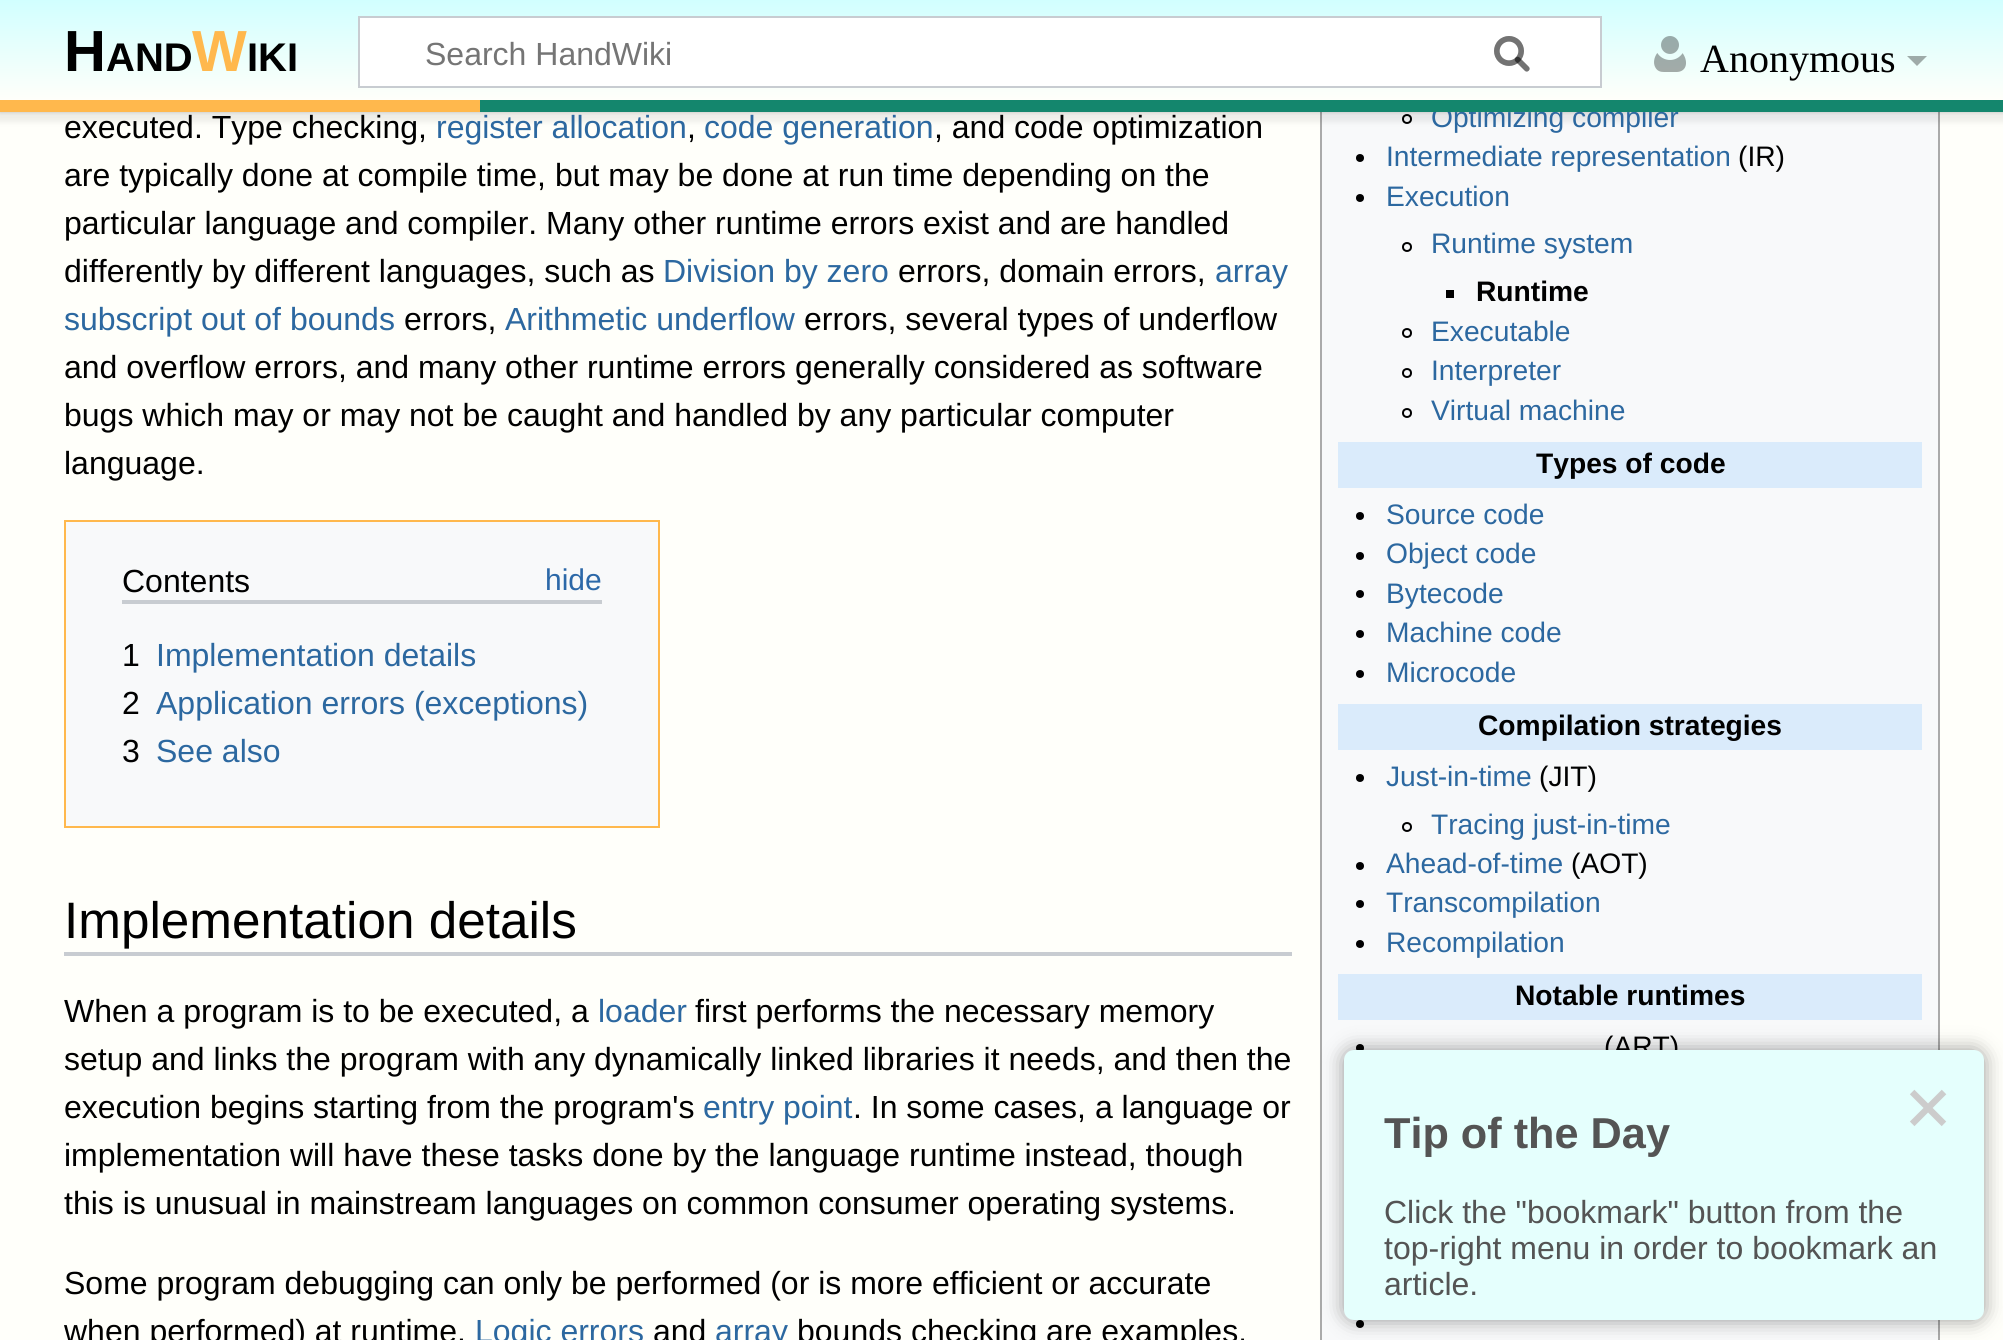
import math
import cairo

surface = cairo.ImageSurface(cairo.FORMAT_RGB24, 2003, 1340)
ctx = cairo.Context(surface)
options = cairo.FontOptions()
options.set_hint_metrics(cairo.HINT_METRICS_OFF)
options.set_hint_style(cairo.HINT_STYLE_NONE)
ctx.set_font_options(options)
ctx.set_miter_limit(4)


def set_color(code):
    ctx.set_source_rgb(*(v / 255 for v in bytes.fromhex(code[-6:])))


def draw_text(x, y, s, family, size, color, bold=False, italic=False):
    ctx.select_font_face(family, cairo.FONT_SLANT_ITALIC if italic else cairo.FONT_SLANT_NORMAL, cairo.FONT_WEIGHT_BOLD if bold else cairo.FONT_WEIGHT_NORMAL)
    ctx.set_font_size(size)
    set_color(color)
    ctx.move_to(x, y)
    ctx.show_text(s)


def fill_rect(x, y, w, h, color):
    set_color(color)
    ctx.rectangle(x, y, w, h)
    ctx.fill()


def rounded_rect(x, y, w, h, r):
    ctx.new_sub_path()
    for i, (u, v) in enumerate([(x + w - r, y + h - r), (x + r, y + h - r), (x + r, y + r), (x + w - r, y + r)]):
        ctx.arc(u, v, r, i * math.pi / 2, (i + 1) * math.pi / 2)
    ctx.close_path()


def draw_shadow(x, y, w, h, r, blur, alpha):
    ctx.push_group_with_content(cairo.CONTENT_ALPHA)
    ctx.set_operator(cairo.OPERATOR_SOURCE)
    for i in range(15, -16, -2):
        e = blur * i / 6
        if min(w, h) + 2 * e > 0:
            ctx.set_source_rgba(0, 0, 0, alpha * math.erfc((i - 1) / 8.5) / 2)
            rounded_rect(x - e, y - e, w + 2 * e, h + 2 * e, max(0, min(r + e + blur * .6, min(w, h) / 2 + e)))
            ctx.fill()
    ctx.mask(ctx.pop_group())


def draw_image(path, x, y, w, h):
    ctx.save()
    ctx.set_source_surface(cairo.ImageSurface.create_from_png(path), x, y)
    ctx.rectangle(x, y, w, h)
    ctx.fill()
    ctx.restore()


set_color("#fffffa")
ctx.paint()
fill_rect(1322, 112, 616, 1228, "#f8f9fa")
ctx.rectangle(1321, -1, 618, 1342)
set_color("#aaaaaa")
ctx.stroke()
ctx.arc(1407, 119, 4, 0, 2 * math.pi)
set_color("#000000")
ctx.stroke()
set_color("#000000")
draw_shadow(0, 100, 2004, 12, 0, 2, 0.2)
draw_shadow(-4, 102, 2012, 20, 0, 3, 0.07)
gradient = cairo.LinearGradient(1002, 0, 1002, 100)
gradient.add_color_stop_rgba(0, 0.82, 1, 1, 1)
gradient.add_color_stop_rgba(1, 1, 1, 0.98, 1)
ctx.set_source(gradient)
ctx.rectangle(0, 0, 2003, 100)
ctx.fill()
draw_text(64, 71, "H", "Liberation Sans", 58, "#000000", bold=True)
draw_text(106, 71, "AND", "Liberation Sans", 40, "#000000", bold=True)
draw_text(192, 71, "W", "Liberation Sans", 58, "#ffb84d", bold=True)
draw_text(247, 71, "IKI", "Liberation Sans", 40, "#000000", bold=True)
set_color("#ffffff")
ctx.rectangle(359, 17, 1242, 70)
ctx.fill_preserve()
set_color("#c8ccd1")
ctx.stroke()
draw_image("assets/img1.png", 1494, 36, 36, 36)
draw_text(425, 65, "Search HandWiki", "Liberation Sans", 32, "#757575")
draw_image("assets/img2.png", 1494, 36, 36, 36)
draw_image("assets/img3.png", 1654, 36, 32, 36)
draw_text(1700, 72, "Anonymous", "Liberation Serif", 40, "#000000")
ctx.set_source_rgba(0, 0, 0, 0.33)
ctx.new_path()
ctx.move_to(1927, 56)
ctx.line_to(1917, 66)
ctx.line_to(1907, 56)
ctx.close_path()
ctx.fill()
fill_rect(0, 100, 480, 12, "#ffb84d")
draw_text(1431, 127, "Optimizing compiler", "Liberation Sans", 28.2, "#2c68a0")
fill_rect(480, 100, 1523, 12, "#14866d")
draw_text(64, 138, "executed. Type checking,", "Liberation Sans", 32, "#000000")
draw_text(436, 138, "register allocation", "Liberation Sans", 32, "#2c68a0")
draw_text(687, 138, ",", "Liberation Sans", 32, "#000000")
draw_text(704, 138, "code generation", "Liberation Sans", 32, "#2c68a0")
draw_text(934, 138, ", and code optimization", "Liberation Sans", 32, "#000000")
draw_text(64, 186, "are typically done at compile time, but may be done at run time depending on the", "Liberation Sans", 32, "#000000")
draw_text(64, 234, "particular language and compiler. Many other runtime errors exist and are handled", "Liberation Sans", 32, "#000000")
draw_text(64, 282, "differently by different languages, such as", "Liberation Sans", 32, "#000000")
draw_text(663, 282, "Division by zero", "Liberation Sans", 32, "#2c68a0")
draw_text(898, 282, "errors, domain errors,", "Liberation Sans", 32, "#000000")
draw_text(1215, 282, "array", "Liberation Sans", 32, "#2c68a0")
draw_text(64, 330, "subscript out of bounds", "Liberation Sans", 32, "#2c68a0")
draw_text(404, 330, "errors,", "Liberation Sans", 32, "#000000")
draw_text(505, 330, "Arithmetic underflow", "Liberation Sans", 32, "#2c68a0")
draw_text(804, 330, "errors, several types of underflow", "Liberation Sans", 32, "#000000")
draw_text(64, 378, "and overflow errors, and many other runtime errors generally considered as software", "Liberation Sans", 32, "#000000")
draw_text(64, 426, "bugs which may or may not be caught and handled by any particular computer", "Liberation Sans", 32, "#000000")
draw_text(64, 474, "language.", "Liberation Sans", 32, "#000000")
ctx.new_path()
ctx.arc(1360, 158, 4, 0, 2 * math.pi)
ctx.fill()
draw_text(1386, 166, "Intermediate representation", "Liberation Sans", 28.2, "#2c68a0")
draw_text(1738, 166, "(IR)", "Liberation Sans", 28.2, "#000000")
ctx.new_path()
ctx.arc(1360, 198, 4, 0, 2 * math.pi)
ctx.fill()
draw_text(1386, 206, "Execution", "Liberation Sans", 28.2, "#2c68a0")
ctx.new_path()
ctx.arc(1407, 247, 4, 0, 2 * math.pi)
set_color("#000000")
ctx.stroke()
draw_text(1431, 253, "Runtime system", "Liberation Sans", 28.2, "#2c68a0")
fill_rect(1446, 290, 8, 8, "#000000")
draw_text(1476, 301, "Runtime", "Liberation Sans", 28.2, "#000000", bold=True)
ctx.new_path()
ctx.arc(1407, 333, 4, 0, 2 * math.pi)
ctx.stroke()
draw_text(1431, 341, "Executable", "Liberation Sans", 28.2, "#2c68a0")
ctx.new_path()
ctx.arc(1407, 373, 4, 0, 2 * math.pi)
set_color("#000000")
ctx.stroke()
draw_text(1431, 380, "Interpreter", "Liberation Sans", 28.2, "#2c68a0")
ctx.new_path()
ctx.arc(1407, 413, 4, 0, 2 * math.pi)
set_color("#000000")
ctx.stroke()
draw_text(1431, 420, "Virtual machine", "Liberation Sans", 28.2, "#2c68a0")
fill_rect(1338, 442, 584, 46, "#daebfb")
draw_text(1536, 473, "Types of code", "Liberation Sans", 28.2, "#000000", bold=True)
ctx.new_path()
ctx.arc(1360, 516, 4, 0, 2 * math.pi)
ctx.fill()
draw_text(1386, 524, "Source code", "Liberation Sans", 28.2, "#2c68a0")
set_color("#000000")
ctx.new_path()
ctx.arc(1360, 556, 4, 0, 2 * math.pi)
ctx.fill()
draw_text(1386, 563, "Object code", "Liberation Sans", 28.2, "#2c68a0")
set_color("#000000")
ctx.new_path()
ctx.arc(1360, 594, 4, 0, 2 * math.pi)
ctx.fill()
draw_text(1386, 603, "Bytecode", "Liberation Sans", 28.2, "#2c68a0")
set_color("#000000")
ctx.new_path()
ctx.arc(1360, 634, 4, 0, 2 * math.pi)
ctx.fill()
draw_text(1386, 642, "Machine code", "Liberation Sans", 28.2, "#2c68a0")
set_color("#000000")
ctx.new_path()
ctx.arc(1360, 674, 4, 0, 2 * math.pi)
ctx.fill()
draw_text(1386, 682, "Microcode", "Liberation Sans", 28.2, "#2c68a0")
fill_rect(1338, 704, 584, 46, "#daebfb")
draw_text(1478, 735, "Compilation strategies", "Liberation Sans", 28.2, "#000000", bold=True)
ctx.new_path()
ctx.arc(1360, 778, 4, 0, 2 * math.pi)
ctx.fill()
draw_text(1386, 786, "Just-in-time", "Liberation Sans", 28.2, "#2c68a0")
draw_text(1539, 786, "(JIT)", "Liberation Sans", 28.2, "#000000")
ctx.new_path()
ctx.arc(1407, 827, 4, 0, 2 * math.pi)
ctx.stroke()
draw_text(1431, 834, "Tracing just-in-time", "Liberation Sans", 28.2, "#2c68a0")
set_color("#000000")
ctx.new_path()
ctx.arc(1360, 866, 4, 0, 2 * math.pi)
ctx.fill()
draw_text(1386, 873, "Ahead-of-time", "Liberation Sans", 28.2, "#2c68a0")
draw_text(1571, 873, "(AOT)", "Liberation Sans", 28.2, "#000000")
ctx.new_path()
ctx.arc(1360, 904, 4, 0, 2 * math.pi)
ctx.fill()
draw_text(1386, 912, "Transcompilation", "Liberation Sans", 28.2, "#2c68a0")
set_color("#000000")
ctx.new_path()
ctx.arc(1360, 944, 4, 0, 2 * math.pi)
ctx.fill()
draw_text(1386, 952, "Recompilation", "Liberation Sans", 28.2, "#2c68a0")
fill_rect(1338, 974, 584, 46, "#daebfb")
draw_text(1515, 1005, "Notable runtimes", "Liberation Sans", 28.2, "#000000", bold=True)
ctx.new_path()
ctx.arc(1360, 1048, 4, 0, 2 * math.pi)
ctx.fill()
draw_text(1604, 1056, "(ART)", "Liberation Sans", 28.2, "#000000")
ctx.new_path()
ctx.arc(1360, 1324, 4, 0, 2 * math.pi)
ctx.fill()
set_color("#f8f9fa")
ctx.rectangle(65, 521, 594, 306)
ctx.fill_preserve()
set_color("#ffb84d")
ctx.stroke()
fill_rect(122, 600, 480, 4, "#c8ccd1")
draw_text(122, 592, "Contents", "Liberation Sans", 32, "#000000")
draw_text(545, 590, "hide", "Liberation Sans", 30, "#2c68a8")
draw_text(122, 666, "1", "Liberation Sans", 32, "#000000")
draw_text(156, 666, "Implementation details", "Liberation Sans", 32, "#2c68a0")
draw_text(122, 714, "2", "Liberation Sans", 32, "#000000")
draw_text(156, 714, "Application errors (exceptions)", "Liberation Sans", 32, "#2c68a0")
draw_text(122, 762, "3", "Liberation Sans", 32, "#000000")
draw_text(156, 762, "See also", "Liberation Sans", 32, "#2c68a0")
fill_rect(64, 952, 1228, 4, "#c8ccd1")
draw_text(64, 938, "Implementation details", "Liberation Sans", 51.25, "#000000")
draw_text(64, 1022, "When a program is to be executed, a", "Liberation Sans", 32, "#000000")
draw_text(598, 1022, "loader", "Liberation Sans", 32, "#2c68a0")
draw_text(695, 1022, "first performs the necessary memory", "Liberation Sans", 32, "#000000")
draw_text(64, 1070, "setup and links the program with any dynamically linked libraries it needs, and then the", "Liberation Sans", 32, "#000000")
draw_text(64, 1118, "execution begins starting from the program's", "Liberation Sans", 32, "#000000")
draw_text(703, 1118, "entry point", "Liberation Sans", 32, "#2c68a0")
draw_text(853, 1118, ". In some cases, a language or", "Liberation Sans", 32, "#000000")
draw_text(64, 1166, "implementation will have these tasks done by the language runtime instead, though", "Liberation Sans", 32, "#000000")
draw_text(64, 1214, "this is unusual in mainstream languages on common consumer operating systems.", "Liberation Sans", 32, "#000000")
draw_text(64, 1294, "Some program debugging can only be performed (or is more efficient or accurate", "Liberation Sans", 32, "#000000")
draw_text(64, 1342, "when performed) at runtime.", "Liberation Sans", 32, "#000000")
draw_text(475, 1342, "Logic errors", "Liberation Sans", 32, "#2c68a0")
draw_text(653, 1342, "and", "Liberation Sans", 32, "#000000")
draw_text(715, 1342, "array", "Liberation Sans", 32, "#2c68a0")
draw_text(797, 1342, "bounds checking are examples.", "Liberation Sans", 32, "#000000")
set_color("#000000")
draw_shadow(1344, 1050, 640, 270, 10, 10, 0.4)
set_color("#e5fffd")
rounded_rect(1344, 1050, 640, 270, 10)
ctx.fill()
draw_text(1904, 1133, "×", "DejaVu Sans Mono", 80, "#cccccc")
draw_text(1384, 1148, "Tip of the Day", "Liberation Sans", 43.25, "#545454", bold=True)
draw_text(1384, 1223, "Click the \"bookmark\" button from the", "Liberation Sans", 32, "#545454")
draw_text(1384, 1259, "top-right menu in order to bookmark an", "Liberation Sans", 32, "#545454")
draw_text(1384, 1295, "article.", "Liberation Sans", 32, "#545454")
surface.write_to_png("output.png")
